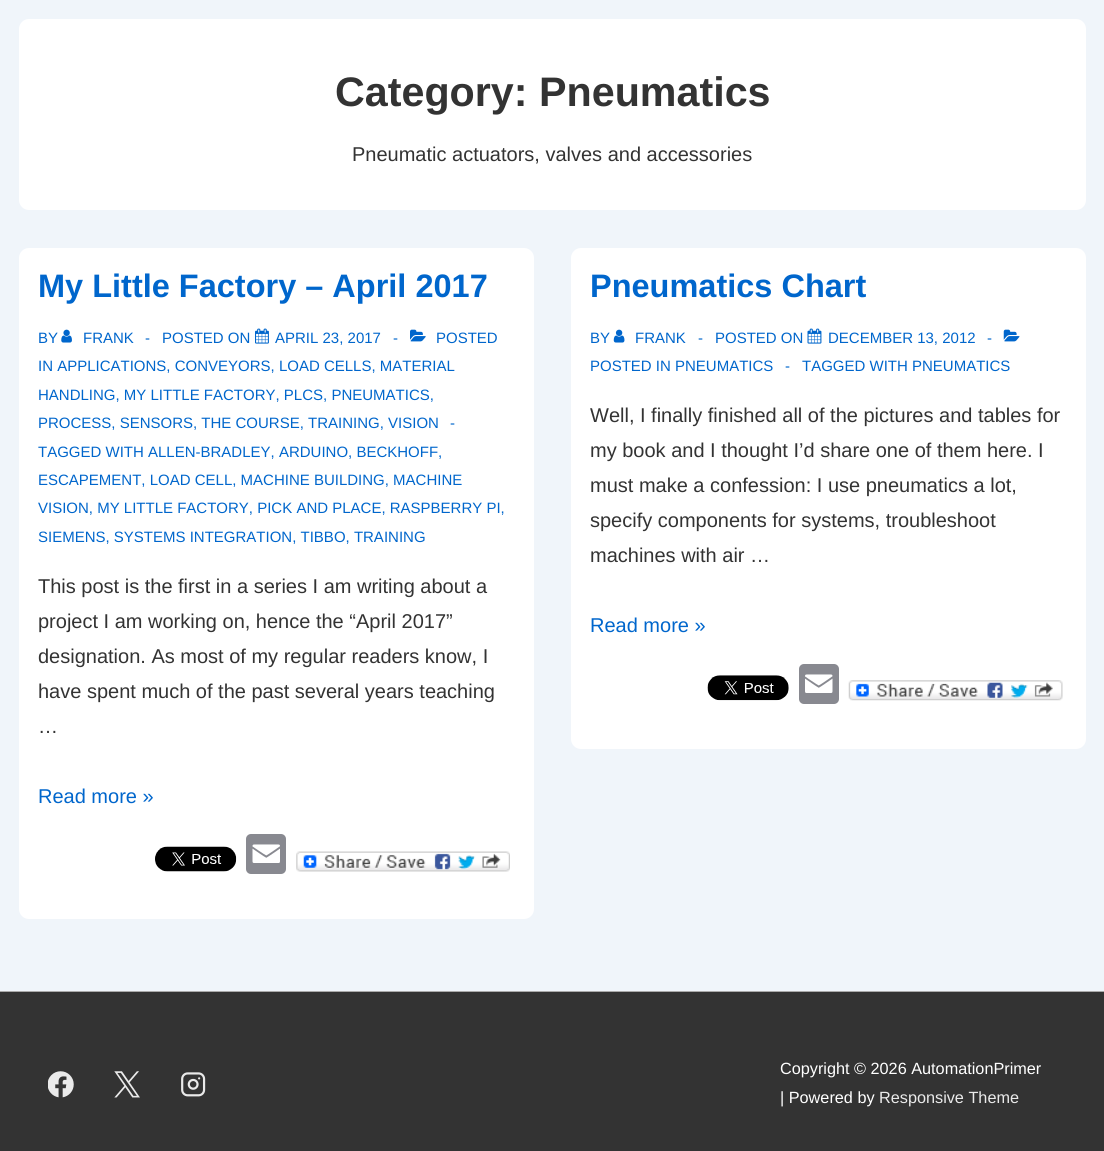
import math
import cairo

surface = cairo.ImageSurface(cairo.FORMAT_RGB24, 1104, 1151)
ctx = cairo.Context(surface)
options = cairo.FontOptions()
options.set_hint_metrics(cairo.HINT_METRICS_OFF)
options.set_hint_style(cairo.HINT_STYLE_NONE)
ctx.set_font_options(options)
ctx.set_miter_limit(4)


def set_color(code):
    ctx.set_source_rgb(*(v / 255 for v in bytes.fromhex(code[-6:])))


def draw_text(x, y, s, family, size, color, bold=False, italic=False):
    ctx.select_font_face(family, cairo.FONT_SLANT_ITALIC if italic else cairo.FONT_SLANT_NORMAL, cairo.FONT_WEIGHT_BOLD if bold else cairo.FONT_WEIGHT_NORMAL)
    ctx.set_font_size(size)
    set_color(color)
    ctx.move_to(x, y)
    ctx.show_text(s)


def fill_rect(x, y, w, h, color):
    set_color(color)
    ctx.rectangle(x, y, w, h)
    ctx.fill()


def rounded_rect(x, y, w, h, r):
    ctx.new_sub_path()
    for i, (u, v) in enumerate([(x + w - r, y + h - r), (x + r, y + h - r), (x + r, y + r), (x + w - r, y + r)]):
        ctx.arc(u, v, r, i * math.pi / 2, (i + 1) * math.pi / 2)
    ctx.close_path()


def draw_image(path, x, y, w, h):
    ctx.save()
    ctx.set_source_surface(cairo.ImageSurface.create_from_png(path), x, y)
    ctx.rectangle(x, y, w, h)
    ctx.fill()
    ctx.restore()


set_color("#f0f5fa")
ctx.paint()
set_color("#ffffff")
rounded_rect(19, 19, 1067, 191, 10)
ctx.fill()
draw_text(335, 106, "Category: Pneumatics", "Liberation Sans", 41.25, "#333333", bold=True)
draw_text(352, 161, "Pneumatic actuators, valves and accessories", "Liberation Sans", 20, "#333333")
set_color("#ffffff")
rounded_rect(19, 248, 515, 671, 10)
ctx.fill()
draw_text(38, 297, "My Little Factory – April 2017", "Liberation Sans", 32.5, "#0066cc", bold=True)
draw_text(38, 343, "BY", "Liberation Sans", 15, "#0066cc")
draw_image("assets/img1.png", 61, 329, 11, 14)
draw_text(83, 343, "FRANK", "Liberation Sans", 15, "#0066cc")
draw_text(145, 343, "-", "Liberation Sans", 15, "#0066cc")
draw_text(162, 343, "POSTED ON", "Liberation Sans", 15, "#0066cc")
draw_image("assets/img2.png", 255, 328, 14, 16)
draw_text(275, 343, "APRIL 23, 2017", "Liberation Sans", 15, "#0066cc")
draw_text(393, 343, "-", "Liberation Sans", 15, "#0066cc")
draw_image("assets/img3.png", 410, 329, 16, 13)
draw_text(436, 343, "POSTED", "Liberation Sans", 15, "#0066cc")
draw_text(38, 371, "IN APPLICATIONS, CONVEYORS, LOAD CELLS, MATERIAL", "Liberation Sans", 15, "#0066cc")
draw_text(38, 400, "HANDLING, MY LITTLE FACTORY, PLCS, PNEUMATICS,", "Liberation Sans", 15, "#0066cc")
draw_text(38, 428, "PROCESS, SENSORS, THE COURSE, TRAINING, VISION", "Liberation Sans", 15, "#0066cc")
draw_text(450, 428, "-", "Liberation Sans", 15, "#0066cc")
draw_text(38, 457, "TAGGED WITH ALLEN-BRADLEY, ARDUINO, BECKHOFF,", "Liberation Sans", 15, "#0066cc")
draw_text(38, 485, "ESCAPEMENT, LOAD CELL, MACHINE BUILDING, MACHINE", "Liberation Sans", 15, "#0066cc")
draw_text(38, 513, "VISION, MY LITTLE FACTORY, PICK AND PLACE, RASPBERRY PI,", "Liberation Sans", 15, "#0066cc")
draw_text(38, 542, "SIEMENS, SYSTEMS INTEGRATION, TIBBO, TRAINING", "Liberation Sans", 15, "#0066cc")
draw_text(38, 593, "This post is the first in a series I am writing about a", "Liberation Sans", 20, "#333333")
draw_text(38, 628, "project I am working on, hence the “April 2017”", "Liberation Sans", 20, "#333333")
draw_text(38, 663, "designation. As most of my regular readers know, I", "Liberation Sans", 20, "#333333")
draw_text(38, 698, "have spent much of the past several years teaching", "Liberation Sans", 20, "#333333")
draw_text(38, 733, "…", "Liberation Sans", 20, "#333333")
draw_text(38, 803, "Read more »", "Liberation Sans", 20, "#0066cc")
draw_image("assets/img4.png", 155, 846, 82, 26)
set_color("#888990")
rounded_rect(246, 834, 40, 40, 5)
ctx.fill()
draw_image("assets/img5.png", 252, 844, 28, 19)
draw_image("assets/img6.png", 296, 851, 214, 21)
set_color("#ffffff")
rounded_rect(571, 248, 515, 501, 10)
ctx.fill()
draw_text(590, 297, "Pneumatics Chart", "Liberation Sans", 32.5, "#0066cc", bold=True)
draw_text(590, 343, "BY", "Liberation Sans", 15, "#0066cc")
draw_image("assets/img7.png", 613, 329, 12, 14)
draw_text(635, 343, "FRANK", "Liberation Sans", 15, "#0066cc")
draw_text(698, 343, "-", "Liberation Sans", 15, "#0066cc")
draw_text(715, 343, "POSTED ON", "Liberation Sans", 15, "#0066cc")
draw_image("assets/img8.png", 807, 328, 15, 16)
draw_text(828, 343, "DECEMBER 13, 2012", "Liberation Sans", 15, "#0066cc")
draw_text(987, 343, "-", "Liberation Sans", 15, "#0066cc")
draw_image("assets/img9.png", 1003, 329, 17, 13)
draw_text(590, 371, "POSTED IN PNEUMATICS", "Liberation Sans", 15, "#0066cc")
draw_text(785, 371, "-", "Liberation Sans", 15, "#0066cc")
draw_text(802, 371, "TAGGED WITH PNEUMATICS", "Liberation Sans", 15, "#0066cc")
draw_text(590, 422, "Well, I finally finished all of the pictures and tables for", "Liberation Sans", 20, "#333333")
draw_text(590, 457, "my book and I thought I’d share one of them here. I", "Liberation Sans", 20, "#333333")
draw_text(590, 492, "must make a confession: I use pneumatics a lot,", "Liberation Sans", 20, "#333333")
draw_text(590, 527, "specify components for systems, troubleshoot", "Liberation Sans", 20, "#333333")
draw_text(590, 562, "machines with air …", "Liberation Sans", 20, "#333333")
draw_text(590, 632, "Read more »", "Liberation Sans", 20, "#0066cc")
draw_image("assets/img10.png", 707, 675, 82, 26)
set_color("#888990")
rounded_rect(799, 664, 40, 40, 5)
ctx.fill()
draw_image("assets/img11.png", 805, 674, 28, 19)
draw_image("assets/img12.png", 848, 680, 215, 21)
fill_rect(0, 992, 1104, 159, "#333333")
fill_rect(0, 991, 1104, 1, "#aaaaaa")
draw_image("assets/img13.png", 48, 1071, 26, 27)
draw_image("assets/img14.png", 114, 1071, 26, 27)
draw_image("assets/img15.png", 181, 1072, 25, 25)
draw_text(780, 1074, "Copyright © 2026 AutomationPrimer", "Liberation Sans", 16.25, "#ffffff")
draw_text(780, 1103, "| Powered by", "Liberation Sans", 16.25, "#ffffff")
draw_text(879, 1103, "Responsive Theme", "Liberation Sans", 16.25, "#eaeaea")
surface.write_to_png("output.png")
